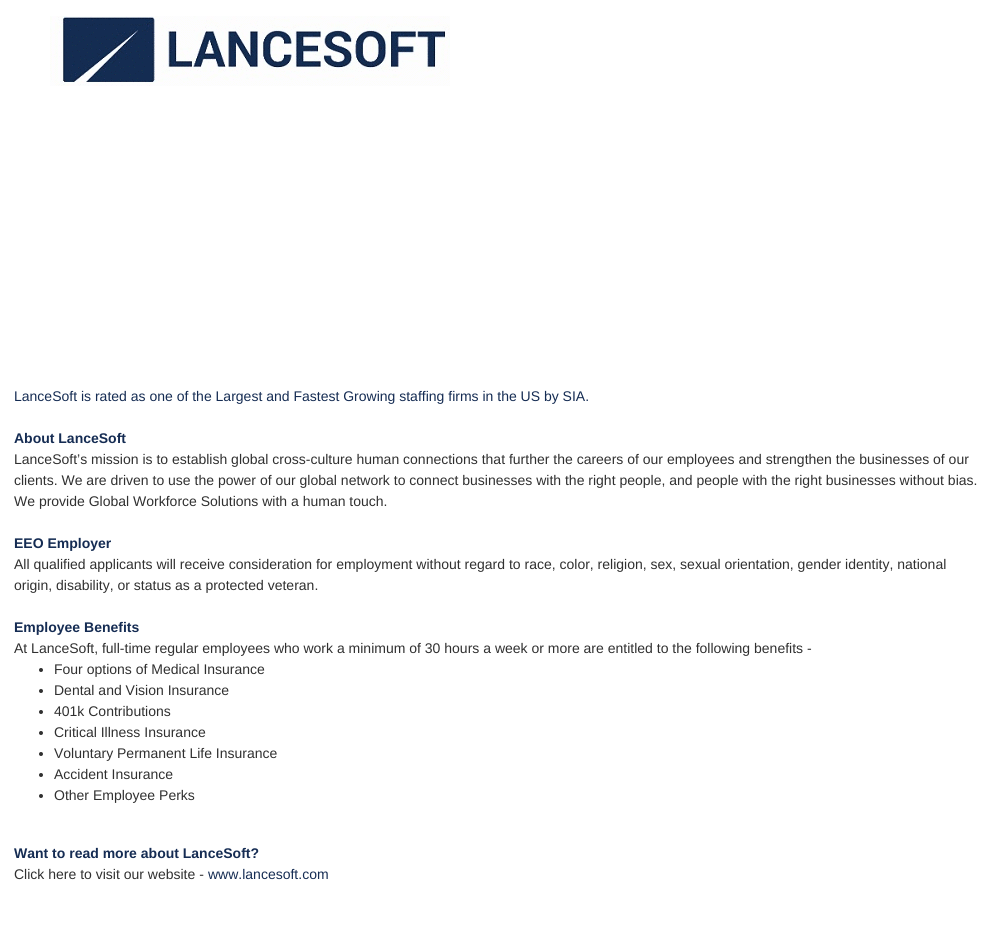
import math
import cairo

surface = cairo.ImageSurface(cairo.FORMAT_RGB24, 996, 927)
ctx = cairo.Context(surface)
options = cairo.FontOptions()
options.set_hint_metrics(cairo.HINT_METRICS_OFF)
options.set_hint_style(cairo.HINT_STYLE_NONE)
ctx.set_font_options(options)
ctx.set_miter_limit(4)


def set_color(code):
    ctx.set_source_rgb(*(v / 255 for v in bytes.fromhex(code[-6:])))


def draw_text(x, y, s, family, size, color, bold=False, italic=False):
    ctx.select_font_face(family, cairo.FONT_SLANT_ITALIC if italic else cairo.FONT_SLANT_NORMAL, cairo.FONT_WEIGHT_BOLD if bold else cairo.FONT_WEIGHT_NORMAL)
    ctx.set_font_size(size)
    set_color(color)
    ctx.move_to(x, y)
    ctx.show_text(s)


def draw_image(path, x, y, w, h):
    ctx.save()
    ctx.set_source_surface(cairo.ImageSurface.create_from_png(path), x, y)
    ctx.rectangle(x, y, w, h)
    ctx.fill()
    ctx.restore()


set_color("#ffffff")
ctx.paint()
draw_image("assets/img1.png", 50, 16, 400, 70)
draw_text(14, 401, "LanceSoft is rated as one of the Largest and Fastest Growing staffing firms in the US by SIA.", "Liberation Sans", 14, "#152c53")
draw_text(14, 443, "About LanceSoft", "Liberation Sans", 14, "#152c53", bold=True)
draw_text(14, 464, "LanceSoft’s mission is to establish global cross-culture human connections that further the careers of our employees and strengthen the businesses of our", "Liberation Sans", 14, "#303030")
draw_text(14, 485, "clients. We are driven to use the power of our global network to connect businesses with the right people, and people with the right businesses without bias.", "Liberation Sans", 14, "#303030")
draw_text(14, 506, "We provide Global Workforce Solutions with a human touch.", "Liberation Sans", 14, "#303030")
draw_text(14, 548, "EEO Employer", "Liberation Sans", 14, "#152c53", bold=True)
draw_text(14, 569, "All qualified applicants will receive consideration for employment without regard to race, color, religion, sex, sexual orientation, gender identity, national", "Liberation Sans", 14, "#303030")
draw_text(14, 590, "origin, disability, or status as a protected veteran.", "Liberation Sans", 14, "#303030")
draw_text(14, 632, "Employee Benefits", "Liberation Sans", 14, "#152c53", bold=True)
draw_text(14, 653, "At LanceSoft, full-time regular employees who work a minimum of 30 hours a week or more are entitled to the following benefits -", "Liberation Sans", 14, "#303030")
ctx.new_path()
ctx.arc(41, 670, 2, 0, 2 * math.pi)
ctx.fill()
draw_text(54, 674, "Four options of Medical Insurance", "Liberation Sans", 14, "#303030")
ctx.new_path()
ctx.arc(41, 691, 2, 0, 2 * math.pi)
ctx.fill()
draw_text(54, 695, "Dental and Vision Insurance", "Liberation Sans", 14, "#303030")
ctx.new_path()
ctx.arc(41, 712, 2, 0, 2 * math.pi)
ctx.fill()
draw_text(54, 716, "401k Contributions", "Liberation Sans", 14, "#303030")
ctx.new_path()
ctx.arc(41, 733, 2, 0, 2 * math.pi)
ctx.fill()
draw_text(54, 737, "Critical Illness Insurance", "Liberation Sans", 14, "#303030")
ctx.new_path()
ctx.arc(41, 754, 2, 0, 2 * math.pi)
ctx.fill()
draw_text(54, 758, "Voluntary Permanent Life Insurance", "Liberation Sans", 14, "#303030")
ctx.new_path()
ctx.arc(41, 775, 2, 0, 2 * math.pi)
ctx.fill()
draw_text(54, 779, "Accident Insurance", "Liberation Sans", 14, "#303030")
ctx.new_path()
ctx.arc(41, 796, 2, 0, 2 * math.pi)
ctx.fill()
draw_text(54, 800, "Other Employee Perks", "Liberation Sans", 14, "#303030")
draw_text(14, 858, "Want to read more about LanceSoft?", "Liberation Sans", 14, "#152c53", bold=True)
draw_text(14, 879, "Click here to visit our website -", "Liberation Sans", 14, "#303030")
draw_text(208, 879, "www.lancesoft.com", "Liberation Sans", 14, "#152c53")
surface.write_to_png("output.png")
